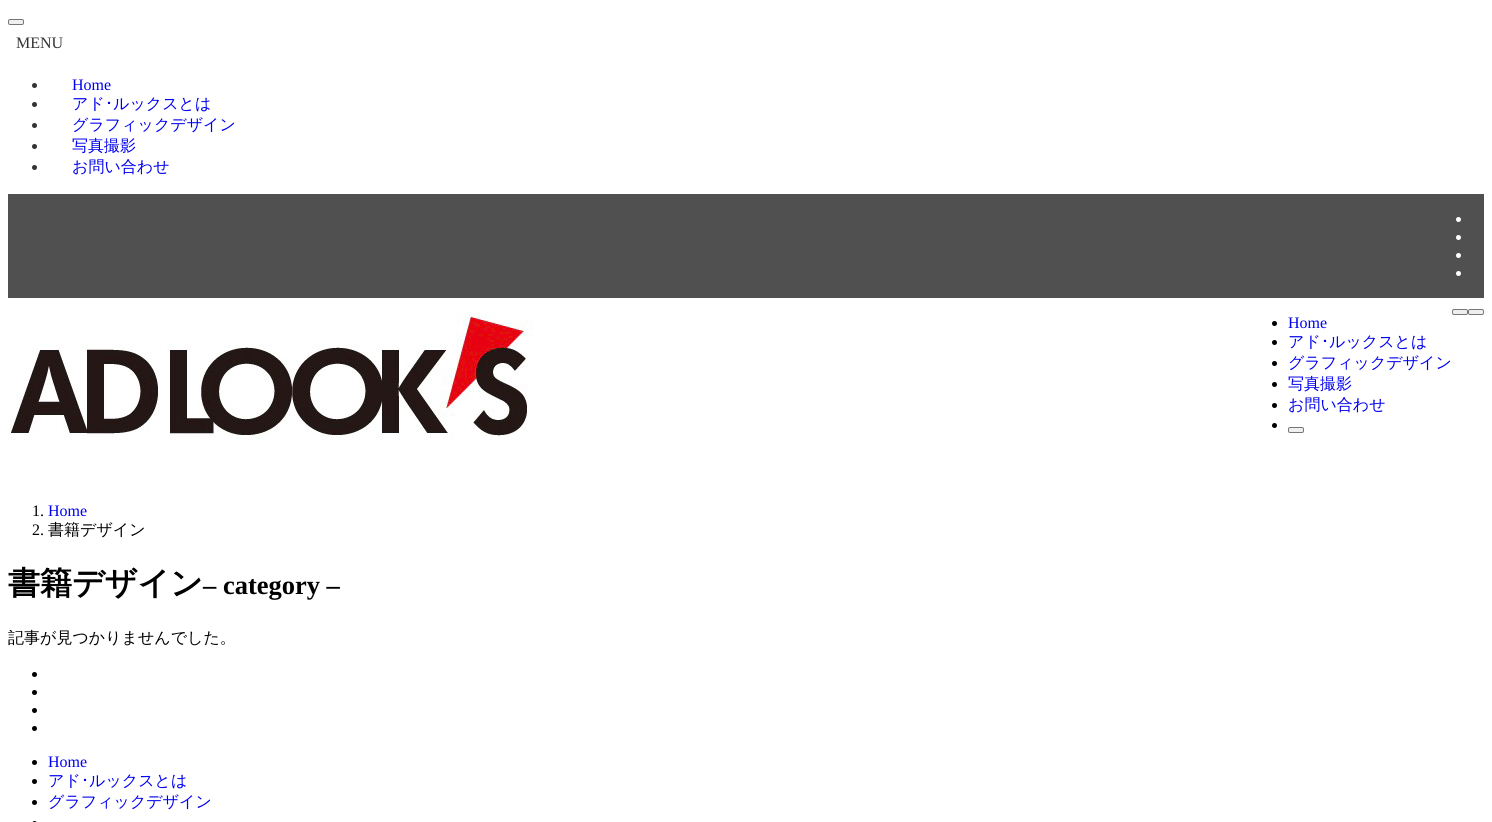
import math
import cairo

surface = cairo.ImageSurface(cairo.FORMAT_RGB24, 1492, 822)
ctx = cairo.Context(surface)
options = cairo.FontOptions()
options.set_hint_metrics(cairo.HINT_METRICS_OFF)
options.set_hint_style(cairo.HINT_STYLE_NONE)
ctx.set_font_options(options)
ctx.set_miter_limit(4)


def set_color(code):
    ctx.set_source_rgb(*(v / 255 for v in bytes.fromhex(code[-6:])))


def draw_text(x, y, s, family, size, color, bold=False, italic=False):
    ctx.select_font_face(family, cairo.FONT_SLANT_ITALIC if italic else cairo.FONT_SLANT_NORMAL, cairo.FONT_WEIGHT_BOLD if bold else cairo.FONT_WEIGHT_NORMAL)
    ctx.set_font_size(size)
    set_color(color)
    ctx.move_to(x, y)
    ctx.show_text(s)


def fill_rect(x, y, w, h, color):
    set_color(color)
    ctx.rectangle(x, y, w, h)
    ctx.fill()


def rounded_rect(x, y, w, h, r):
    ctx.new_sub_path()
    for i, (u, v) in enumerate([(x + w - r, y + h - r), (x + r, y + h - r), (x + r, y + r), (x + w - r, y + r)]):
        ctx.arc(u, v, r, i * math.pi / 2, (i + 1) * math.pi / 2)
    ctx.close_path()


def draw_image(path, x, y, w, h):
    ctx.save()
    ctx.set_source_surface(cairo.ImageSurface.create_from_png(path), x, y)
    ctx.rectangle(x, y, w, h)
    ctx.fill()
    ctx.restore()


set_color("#ffffff")
ctx.paint()
set_color("#efefef")
rounded_rect(8.5, 19.5, 15, 5, 1.5)
ctx.fill_preserve()
set_color("#767676")
ctx.set_line_width(1)
ctx.stroke()
draw_text(16, 48, "MENU", "Liberation Serif", 16, "#333333")
ctx.new_path()
ctx.arc(34.5, 85.5, 2.5, 0, 2 * math.pi)
ctx.fill()
draw_text(72, 90, "Home", "Liberation Serif", 16, "#0000ee")
set_color("#333333")
ctx.new_path()
ctx.arc(34.5, 104.5, 2.5, 0, 2 * math.pi)
ctx.fill()
draw_text(72, 109, "アド", "WenQuanYi Zen Hei Medium", 16, "#0000ee")
draw_text(105, 109, "･", "IPAPGothic", 16, "#0000ee")
draw_text(113, 109, "ルックスとは", "WenQuanYi Zen Hei Medium", 16, "#0000ee")
set_color("#333333")
ctx.new_path()
ctx.arc(34.5, 125.5, 2.5, 0, 2 * math.pi)
ctx.fill()
draw_text(72, 130, "グラフィックデザイン", "WenQuanYi Zen Hei Medium", 16, "#0000ee")
set_color("#333333")
ctx.new_path()
ctx.arc(34.5, 146.5, 2.5, 0, 2 * math.pi)
ctx.fill()
draw_text(72, 151, "写真撮影", "WenQuanYi Zen Hei Medium", 16, "#0000ee")
set_color("#333333")
ctx.new_path()
ctx.arc(34.5, 167.5, 2.5, 0, 2 * math.pi)
ctx.fill()
draw_text(72, 172, "お問い合わせ", "WenQuanYi Zen Hei Medium", 16, "#0000ee")
fill_rect(8, 194, 1476, 104, "#505050")
set_color("#ffffff")
ctx.new_path()
ctx.arc(1458.5, 219.5, 2.5, 0, 2 * math.pi)
ctx.fill()
ctx.arc(1458.5, 237.5, 2.5, 0, 2 * math.pi)
ctx.fill()
ctx.arc(1458.5, 255.5, 2.5, 0, 2 * math.pi)
ctx.fill()
ctx.arc(1458.5, 273.5, 2.5, 0, 2 * math.pi)
ctx.fill()
set_color("#efefef")
rounded_rect(1452.5, 309.5, 15, 5, 1.5)
ctx.fill_preserve()
set_color("#767676")
ctx.stroke()
set_color("#efefef")
rounded_rect(1468.5, 309.5, 15, 5, 1.5)
ctx.fill_preserve()
set_color("#767676")
ctx.stroke()
draw_image("assets/img1.png", 8, 314, 526, 126)
set_color("#000000")
ctx.arc(1274.5, 323.5, 2.5, 0, 2 * math.pi)
ctx.fill()
draw_text(1288, 328, "Home", "Liberation Serif", 16, "#0000ee")
set_color("#000000")
ctx.new_path()
ctx.arc(1274.5, 342.5, 2.5, 0, 2 * math.pi)
ctx.fill()
draw_text(1288, 347, "アド", "WenQuanYi Zen Hei Medium", 16, "#0000ee")
draw_text(1321, 347, "･", "IPAPGothic", 16, "#0000ee")
draw_text(1329, 347, "ルックスとは", "WenQuanYi Zen Hei Medium", 16, "#0000ee")
set_color("#000000")
ctx.new_path()
ctx.arc(1274.5, 363.5, 2.5, 0, 2 * math.pi)
ctx.fill()
draw_text(1288, 368, "グラフィックデザイン", "WenQuanYi Zen Hei Medium", 16, "#0000ee")
set_color("#000000")
ctx.new_path()
ctx.arc(1274.5, 384.5, 2.5, 0, 2 * math.pi)
ctx.fill()
draw_text(1288, 389, "写真撮影", "WenQuanYi Zen Hei Medium", 16, "#0000ee")
set_color("#000000")
ctx.new_path()
ctx.arc(1274.5, 405.5, 2.5, 0, 2 * math.pi)
ctx.fill()
draw_text(1288, 410, "お問い合わせ", "WenQuanYi Zen Hei Medium", 16, "#0000ee")
set_color("#000000")
ctx.new_path()
ctx.arc(1274.5, 425.5, 2.5, 0, 2 * math.pi)
ctx.fill()
set_color("#efefef")
rounded_rect(1288.5, 427.5, 15, 5, 1.5)
ctx.fill_preserve()
set_color("#767676")
ctx.stroke()
draw_text(32, 516, "1.", "Liberation Serif", 16, "#000000")
draw_text(48, 516, "Home", "Liberation Serif", 16, "#0000ee")
draw_text(32, 535, "2.", "Liberation Serif", 16, "#000000")
draw_text(48, 535, "書籍デザイン", "WenQuanYi Zen Hei Medium", 16, "#000000")
draw_text(8, 594, "書籍デザイン", "WenQuanYi Zen Hei", 32, "#000000", bold=True)
draw_text(203, 594, "– category –", "Liberation Serif", 26.5, "#000000", bold=True)
draw_text(8, 643, "記事が見つかりませんでした。", "WenQuanYi Zen Hei Medium", 16, "#000000")
ctx.new_path()
ctx.arc(34.5, 674.5, 2.5, 0, 2 * math.pi)
ctx.fill()
ctx.arc(34.5, 692.5, 2.5, 0, 2 * math.pi)
ctx.fill()
ctx.arc(34.5, 710.5, 2.5, 0, 2 * math.pi)
ctx.fill()
ctx.arc(34.5, 728.5, 2.5, 0, 2 * math.pi)
ctx.fill()
ctx.arc(34.5, 762.5, 2.5, 0, 2 * math.pi)
ctx.fill()
draw_text(48, 767, "Home", "Liberation Serif", 16, "#0000ee")
set_color("#000000")
ctx.new_path()
ctx.arc(34.5, 781.5, 2.5, 0, 2 * math.pi)
ctx.fill()
draw_text(48, 786, "アド", "WenQuanYi Zen Hei Medium", 16, "#0000ee")
draw_text(81, 786, "･", "IPAPGothic", 16, "#0000ee")
draw_text(89, 786, "ルックスとは", "WenQuanYi Zen Hei Medium", 16, "#0000ee")
set_color("#000000")
ctx.new_path()
ctx.arc(34.5, 802.5, 2.5, 0, 2 * math.pi)
ctx.fill()
draw_text(48, 807, "グラフィックデザイン", "WenQuanYi Zen Hei Medium", 16, "#0000ee")
set_color("#000000")
rounded_rect(32, 821, 5, 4, 2.5)
ctx.fill()
surface.write_to_png("output.png")
